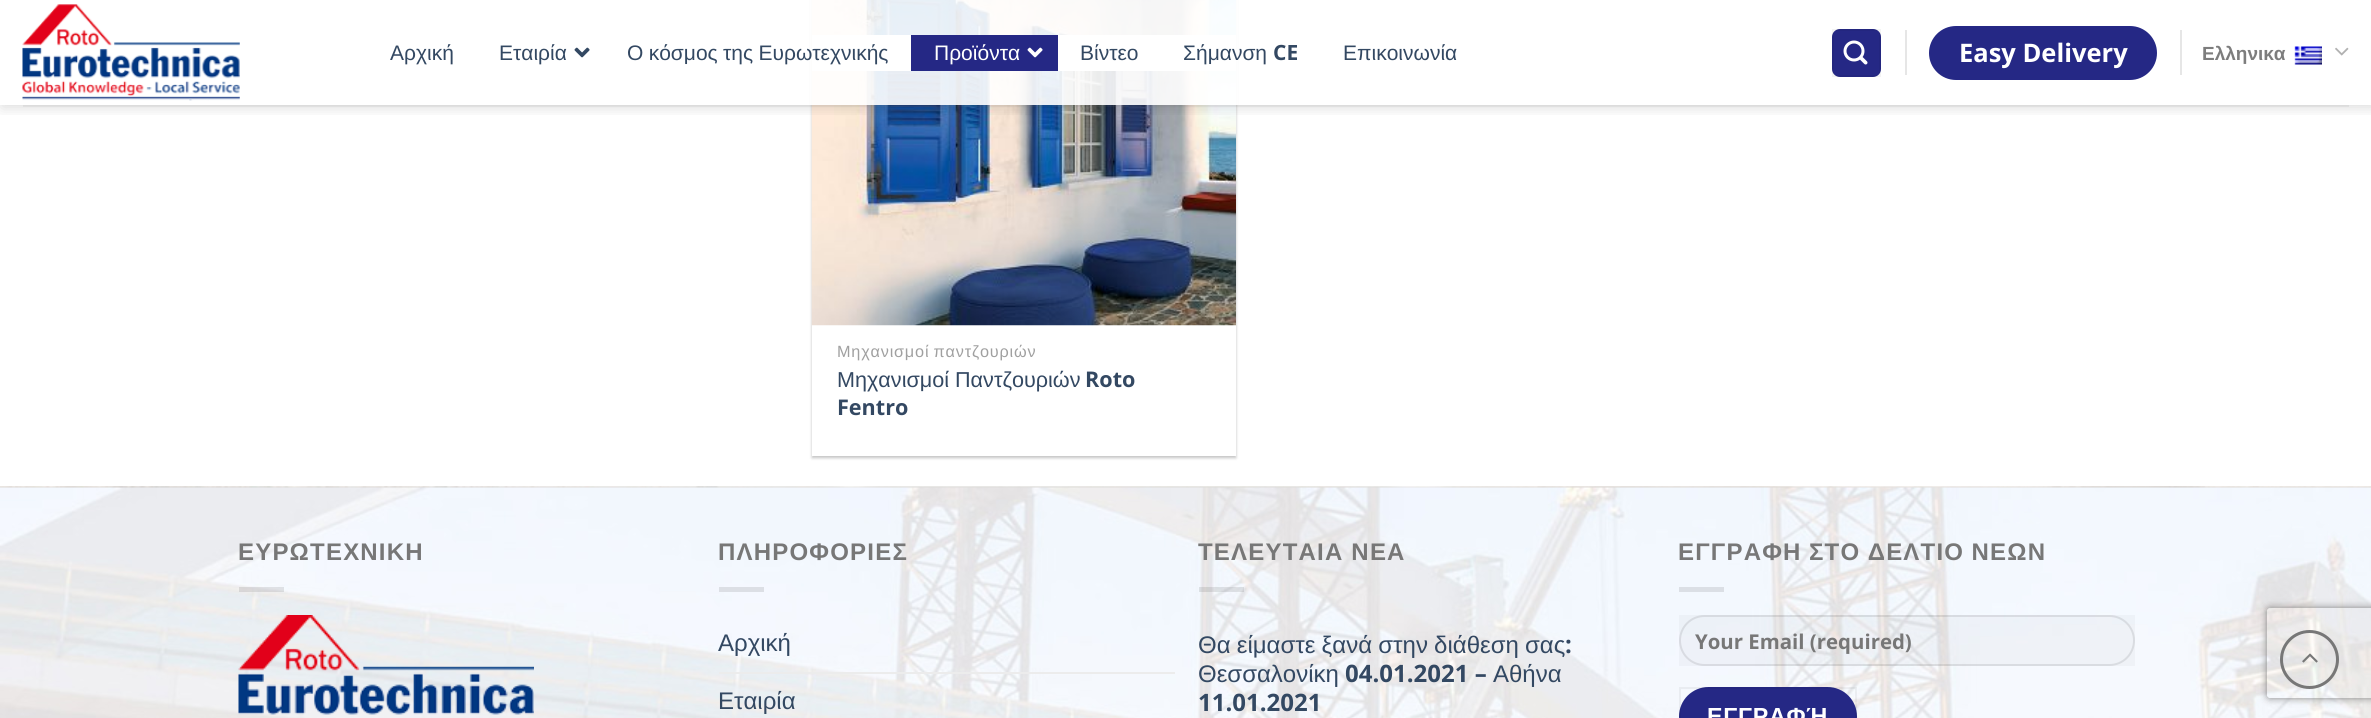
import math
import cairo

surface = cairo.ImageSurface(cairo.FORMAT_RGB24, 2371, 718)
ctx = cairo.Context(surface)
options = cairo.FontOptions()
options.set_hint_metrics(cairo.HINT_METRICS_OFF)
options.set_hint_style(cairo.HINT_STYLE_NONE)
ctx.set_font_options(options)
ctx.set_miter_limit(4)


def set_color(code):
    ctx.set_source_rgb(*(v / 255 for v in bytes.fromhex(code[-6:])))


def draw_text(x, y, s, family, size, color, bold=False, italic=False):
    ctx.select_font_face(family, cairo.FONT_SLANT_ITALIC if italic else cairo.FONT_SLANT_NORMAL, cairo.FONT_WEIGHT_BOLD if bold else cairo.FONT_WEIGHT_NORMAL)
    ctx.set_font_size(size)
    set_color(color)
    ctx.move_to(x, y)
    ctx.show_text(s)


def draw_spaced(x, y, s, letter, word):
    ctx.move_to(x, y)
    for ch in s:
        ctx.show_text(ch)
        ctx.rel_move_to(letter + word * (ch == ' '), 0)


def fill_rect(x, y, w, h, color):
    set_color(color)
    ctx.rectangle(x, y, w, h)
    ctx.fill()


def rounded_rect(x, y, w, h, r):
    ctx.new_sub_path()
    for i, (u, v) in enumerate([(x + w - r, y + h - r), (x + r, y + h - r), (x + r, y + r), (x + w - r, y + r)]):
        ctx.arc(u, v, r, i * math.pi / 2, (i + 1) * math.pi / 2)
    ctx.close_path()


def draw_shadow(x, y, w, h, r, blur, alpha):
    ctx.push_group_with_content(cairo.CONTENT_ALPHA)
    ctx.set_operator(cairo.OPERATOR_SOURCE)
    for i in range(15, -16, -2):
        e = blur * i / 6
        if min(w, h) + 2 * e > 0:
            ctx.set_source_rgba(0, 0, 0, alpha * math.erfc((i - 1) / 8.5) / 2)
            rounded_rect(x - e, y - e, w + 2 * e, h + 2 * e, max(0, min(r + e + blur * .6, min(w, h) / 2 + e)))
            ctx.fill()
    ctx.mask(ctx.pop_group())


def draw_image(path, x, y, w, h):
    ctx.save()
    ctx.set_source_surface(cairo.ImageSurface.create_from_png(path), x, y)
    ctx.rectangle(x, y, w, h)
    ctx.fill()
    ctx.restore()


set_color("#ffffff")
ctx.paint()
ctx.save()
ctx.set_fill_rule(cairo.FILL_RULE_EVEN_ODD)
ctx.new_path()
ctx.move_to(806, 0)
ctx.line_to(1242, 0)
ctx.line_to(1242, 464)
ctx.line_to(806, 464)
ctx.close_path()
ctx.move_to(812, -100)
ctx.line_to(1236, -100)
ctx.line_to(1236, 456)
ctx.line_to(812, 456)
ctx.close_path()
ctx.clip()
set_color("#000000")
draw_shadow(812, -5, 424, 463, 0, 1.5, 0.24)
ctx.restore()
draw_image("assets/img7.png", 811, 0, 425, 326)
ctx.save()
ctx.rectangle(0, 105, 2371, 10)
ctx.clip()
set_color("#000000")
draw_shadow(2, 2, 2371, 105, 0, 7.5, 0.15)
ctx.restore()
ctx.set_source_rgba(1, 1, 1, 0.9)
ctx.rectangle(810, 0, 428, 105)
ctx.fill()
draw_image("assets/img1.png", 22, 4, 218, 97)
fill_rect(812, 35, 424, 36, "#ffffff")
draw_text(390, 60, "Αρχική", "Liberation Sans", 21, "#334862")
draw_text(499, 60, "Εταιρία", "Liberation Sans", 21, "#334862")
draw_image("assets/img2.png", 574, 47, 16, 11)
draw_spaced(627, 60, "Ο κόσμος της Ευρωτεχνικής", 0, -0.5)
fill_rect(911, 35, 147, 36, "#252885")
draw_text(934, 60, "Προϊόντα", "Liberation Sans", 21, "#ffffff")
draw_image("assets/img3.png", 1027, 47, 16, 11)
draw_text(1080, 60, "Βίντεο", "Liberation Sans", 21, "#334862")
draw_text(1183, 60, "Σήμανση", "Liberation Sans", 21, "#334862")
draw_text(1273, 60, "CE", "Open Sans", 21, "#334862", bold=True)
draw_text(1343, 60, "Επικοινωνία", "Liberation Sans", 21, "#334862")
set_color("#252885")
rounded_rect(1832, 29, 49, 48, 8)
ctx.fill()
ctx.rectangle(1833, 30, 47, 46)
ctx.set_source_rgba(0, 0, 0, 0.05)
ctx.stroke()
draw_image("assets/img4.png", 1843, 40, 25, 25)
fill_rect(1905, 30, 2, 45, "#e6e6e6")
set_color("#252885")
rounded_rect(1929, 26, 228, 54, 27)
ctx.fill()
draw_text(1959, 62, "Easy Delivery", "Open Sans", 25.5, "#ffffff", bold=True)
fill_rect(2180, 30, 2, 45, "#e6e6e6")
draw_text(2202, 60, "Ελληνικα", "Liberation Sans", 19, "#7d7d7d", bold=True)
draw_image("assets/img5.png", 2294, 46, 28, 19)
draw_image("assets/img6.png", 2335, 47, 14, 9)
ctx.set_source_rgba(0.467, 0.467, 0.467, 0.1)
ctx.rectangle(23, 105, 2326, 2)
ctx.fill()
ctx.select_font_face("Liberation Sans")
ctx.set_font_size(16.25)
set_color("#a0a0a0")
draw_spaced(837, 357, "Μηχανισμοί παντζουριών", 0.8, -1)
draw_text(837, 387, "Μηχανισμοί Παντζουριών", "Liberation Sans", 21.6, "#334862")
draw_text(1085, 387, "Roto", "Open Sans", 21.6, "#334862", bold=True)
draw_text(837, 415, "Fentro", "Open Sans", 21.6, "#334862", bold=True)
draw_image("assets/img8.png", 0, 486, 2371, 232)
ctx.set_source_rgba(0, 0, 0, 0.05)
ctx.rectangle(0, 486, 2371, 2)
ctx.fill()
ctx.select_font_face("Liberation Sans", cairo.FONT_SLANT_NORMAL, cairo.FONT_WEIGHT_BOLD)
ctx.set_font_size(24)
set_color("#777777")
draw_spaced(238, 560, "ΕΥΡΩΤΕΧΝΙΚΗ", 1.2, 0)
ctx.set_source_rgba(0, 0, 0, 0.1)
ctx.rectangle(239, 587, 45, 5)
ctx.fill()
draw_image("assets/img9.png", 238, 615, 296, 100)
set_color("#777777")
draw_spaced(718, 560, "ΠΛΗΡΟΦΟΡΙΕΣ", 1.2, 0)
fill_rect(719, 587, 45, 5, "#dcdfe5")
draw_text(718, 651, "Αρχική", "Liberation Sans", 24, "#334862")
fill_rect(719, 672, 456, 2, "#ececec")
draw_text(718, 709, "Εταιρία", "Liberation Sans", 24, "#334862")
ctx.select_font_face("Liberation Sans", cairo.FONT_SLANT_NORMAL, cairo.FONT_WEIGHT_BOLD)
set_color("#777777")
draw_spaced(1198, 560, "ΤΕΛΕΥΤΑΙΑ ΝΕΑ", 1.2, 0)
ctx.set_source_rgba(0, 0, 0, 0.1)
ctx.rectangle(1199, 587, 45, 5)
ctx.fill()
ctx.select_font_face("Liberation Sans")
set_color("#334862")
draw_spaced(1198, 653, "Θα είμαστε ξανά στην διάθεση σας", 0, -0.5)
draw_text(1565, 653, ":", "Open Sans", 24, "#334862", bold=True)
draw_text(1198, 682, "Θεσσαλονίκη", "Liberation Sans", 24, "#334862")
draw_text(1345, 682, "04.01.2021 –", "Open Sans", 24, "#334862", bold=True)
draw_text(1493, 682, "Αθήνα", "Liberation Sans", 24, "#334862")
draw_text(1198, 711, "11.01.2021", "Open Sans", 24, "#334862", bold=True)
ctx.select_font_face("Liberation Sans", cairo.FONT_SLANT_NORMAL, cairo.FONT_WEIGHT_BOLD)
set_color("#777777")
draw_spaced(1678, 560, "ΕΓΓΡΑΦΗ ΣΤΟ ΔΕΛΤΙΟ ΝΕΩΝ", 1.2, -0.5)
fill_rect(1679, 587, 45, 5, "#dbdfe5")
ctx.set_source_rgba(0, 0, 0, 0.03)
ctx.rectangle(1679, 615, 456, 51)
ctx.fill()
rounded_rect(1680, 616, 454, 49, 24.5)
ctx.set_source_rgba(0, 0, 0, 0.09)
ctx.stroke()
draw_text(1695, 649, "Your Email (required)", "Open Sans", 20.4, "#777777", bold=True)
set_color("#252885")
rounded_rect(1679, 687, 178, 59, 29.5)
ctx.fill()
ctx.rectangle(1680, 688, 176, 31)
ctx.set_source_rgba(0, 0, 0, 0.05)
ctx.stroke()
ctx.select_font_face("Liberation Sans", cairo.FONT_SLANT_NORMAL, cairo.FONT_WEIGHT_BOLD)
ctx.set_font_size(23.25)
set_color("#ffffff")
draw_spaced(1707, 724, "ΕΓΓΡΑΦΉ", 0.75, 0)
ctx.save()
ctx.set_fill_rule(cairo.FILL_RULE_EVEN_ODD)
ctx.new_path()
ctx.move_to(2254, 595)
ctx.line_to(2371, 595)
ctx.line_to(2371, 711)
ctx.line_to(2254, 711)
ctx.close_path()
ctx.move_to(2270, 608)
ctx.line_to(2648, 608)
ctx.curve_to(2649.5, 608, 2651, 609.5, 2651, 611)
ctx.line_to(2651, 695)
ctx.curve_to(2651, 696.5, 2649.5, 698, 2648, 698)
ctx.line_to(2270, 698)
ctx.curve_to(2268.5, 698, 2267, 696.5, 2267, 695)
ctx.line_to(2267, 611)
ctx.curve_to(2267, 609.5, 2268.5, 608, 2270, 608)
ctx.close_path()
ctx.clip()
set_color("#808080")
draw_shadow(2267, 608, 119, 90, 3, 4, 1)
ctx.restore()
ctx.arc(2309.5, 659.5, 28, 0, 2 * math.pi)
set_color("#777777")
ctx.set_line_width(3)
ctx.stroke()
draw_image("assets/img10.png", 2302, 653, 16, 10)
surface.write_to_png("output.png")
